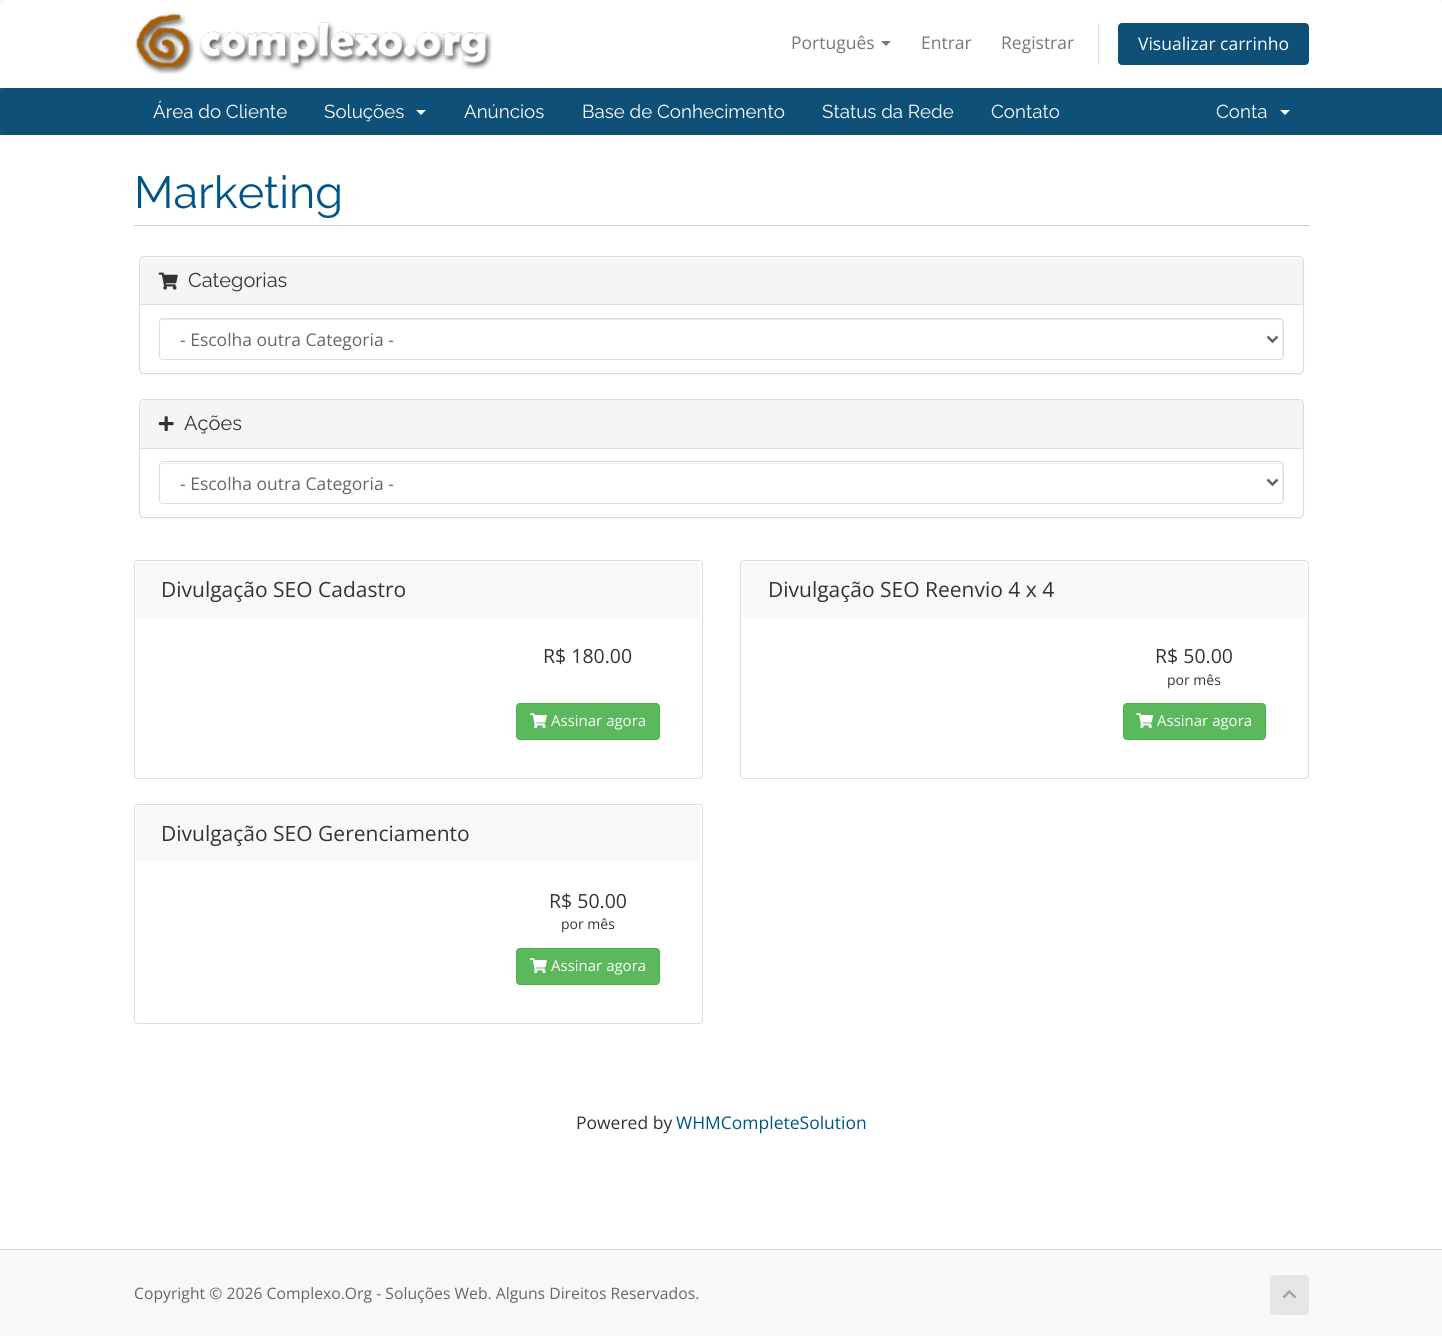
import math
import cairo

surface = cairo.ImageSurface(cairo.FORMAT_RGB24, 1442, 1336)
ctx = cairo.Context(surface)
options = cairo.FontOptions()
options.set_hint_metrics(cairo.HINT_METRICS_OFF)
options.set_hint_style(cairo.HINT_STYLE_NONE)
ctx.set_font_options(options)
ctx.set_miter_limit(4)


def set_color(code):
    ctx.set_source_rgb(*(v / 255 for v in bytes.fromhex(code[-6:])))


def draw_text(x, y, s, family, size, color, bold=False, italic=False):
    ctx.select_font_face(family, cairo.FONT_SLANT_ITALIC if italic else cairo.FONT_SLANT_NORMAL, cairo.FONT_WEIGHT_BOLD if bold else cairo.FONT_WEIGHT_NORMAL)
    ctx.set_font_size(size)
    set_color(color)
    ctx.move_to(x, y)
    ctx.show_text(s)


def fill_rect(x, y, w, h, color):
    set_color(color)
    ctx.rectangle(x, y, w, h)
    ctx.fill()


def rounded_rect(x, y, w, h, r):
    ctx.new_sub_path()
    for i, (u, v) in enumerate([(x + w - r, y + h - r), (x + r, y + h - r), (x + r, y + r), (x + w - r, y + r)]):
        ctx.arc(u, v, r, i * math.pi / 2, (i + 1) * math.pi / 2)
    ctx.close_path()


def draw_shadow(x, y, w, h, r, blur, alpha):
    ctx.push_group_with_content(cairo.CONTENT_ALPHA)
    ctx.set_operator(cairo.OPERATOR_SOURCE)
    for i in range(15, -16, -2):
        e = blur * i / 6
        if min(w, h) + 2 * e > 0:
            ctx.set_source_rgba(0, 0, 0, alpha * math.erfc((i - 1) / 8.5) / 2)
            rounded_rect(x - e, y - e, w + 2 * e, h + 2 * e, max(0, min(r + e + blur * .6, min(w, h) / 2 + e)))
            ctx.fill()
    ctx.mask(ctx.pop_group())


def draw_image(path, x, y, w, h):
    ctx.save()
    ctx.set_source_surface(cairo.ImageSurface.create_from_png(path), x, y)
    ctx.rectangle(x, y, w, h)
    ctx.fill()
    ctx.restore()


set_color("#f8f8f8")
ctx.paint()
set_color("#ffffff")
ctx.new_path()
ctx.move_to(6, 0)
ctx.line_to(1437, 0)
ctx.curve_to(1440.5, 0, 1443, 2.5, 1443, 6)
ctx.line_to(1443, 88)
ctx.line_to(0, 88)
ctx.line_to(0, 6)
ctx.curve_to(0, 2.5, 2.5, 0, 6, 0)
ctx.close_path()
ctx.fill()
draw_image("assets/img1.png", 135, 13, 357, 61)
draw_text(791, 49, "Português", "Open Sans", 17.5, "#777777")
ctx.new_path()
ctx.move_to(881, 41)
ctx.line_to(891, 41)
ctx.line_to(886, 46)
ctx.close_path()
ctx.fill()
draw_text(921, 49, "Entrar", "Open Sans", 17.5, "#777777")
draw_text(1001, 49, "Registrar", "Open Sans", 17.5, "#777777")
fill_rect(1098, 23, 1, 42, "#dddddd")
set_color("#0e5077")
rounded_rect(1118, 23, 191, 42, 4)
ctx.fill()
draw_text(1138, 50, "Visualizar carrinho", "Open Sans", 17.5, "#ffffff")
fill_rect(0, 88, 1442, 47, "#006687")
set_color("#0e5077")
rounded_rect(0, 88, 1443, 47, 5)
ctx.fill()
draw_text(153, 118, "Área do Cliente", "Raleway", 18.75, "#ffffff")
draw_text(324, 118, "Soluções", "Raleway", 18.75, "#ffffff")
ctx.new_path()
ctx.move_to(416, 110)
ctx.line_to(426, 110)
ctx.line_to(421, 115)
ctx.close_path()
ctx.fill()
draw_text(464, 118, "Anúncios", "Raleway", 18.75, "#ffffff")
draw_text(582, 118, "Base de Conhecimento", "Raleway", 18.75, "#ffffff")
draw_text(822, 118, "Status da Rede", "Raleway", 18.75, "#ffffff")
draw_text(991, 118, "Contato", "Raleway", 18.75, "#ffffff")
draw_text(1216, 118, "Conta", "Raleway", 18.75, "#ffffff")
ctx.new_path()
ctx.move_to(1280, 110)
ctx.line_to(1290, 110)
ctx.line_to(1285, 115)
ctx.close_path()
ctx.fill()
fill_rect(0, 135, 1442, 1114, "#ffffff")
fill_rect(134, 225, 1175, 1, "#cccccc")
draw_text(134, 208, "Marketing", "Raleway", 45, "#005588")
set_color("#000000")
draw_shadow(139, 258, 1165, 117, 5, 0.5, 0.05)
set_color("#ffffff")
rounded_rect(139.5, 256.5, 1164, 117, 4.5)
ctx.fill_preserve()
set_color("#dddddd")
ctx.set_line_width(1)
ctx.stroke()
set_color("#f5f5f5")
ctx.new_path()
ctx.move_to(144, 258)
ctx.line_to(1299, 258)
ctx.curve_to(1301, 258, 1303, 260, 1303, 262)
ctx.line_to(1303, 305)
ctx.line_to(140, 305)
ctx.line_to(140, 262)
ctx.curve_to(140, 260, 142, 258, 144, 258)
ctx.close_path()
ctx.fill()
fill_rect(140, 304, 1163, 1, "#dddddd")
draw_image("assets/img2.png", 158, 272, 20, 18)
draw_text(188, 287, "Categorias", "Raleway", 20, "#333333")
set_color("#ececec")
ctx.new_path()
ctx.move_to(162, 320)
ctx.line_to(1280, 320)
ctx.curve_to(1281, 320, 1282, 321, 1282, 322)
ctx.line_to(1282, 359)
ctx.curve_to(1283, 358, 1283, 357, 1283, 356)
ctx.line_to(1283, 322)
ctx.curve_to(1283, 320, 1282, 319, 1280, 319)
ctx.line_to(162, 319)
ctx.curve_to(161, 319, 160, 320, 160, 322)
ctx.curve_to(160, 321, 161, 320, 162, 320)
ctx.close_path()
ctx.fill()
rounded_rect(159.5, 318.5, 1124, 41, 3.5)
set_color("#dddddd")
ctx.stroke()
ctx.new_path()
ctx.move_to(1267.5, 336.5)
ctx.line_to(1272.5, 341.5)
ctx.line_to(1277.5, 336.5)
set_color("#626262")
ctx.set_line_width(2.5)
ctx.stroke()
draw_text(180, 346, "- Escolha outra Categoria -", "Open Sans", 17.5, "#666666")
set_color("#000000")
draw_shadow(139, 400, 1165, 119, 5, 0.5, 0.05)
set_color("#ffffff")
rounded_rect(139.5, 399.5, 1164, 118, 4.5)
ctx.fill_preserve()
set_color("#dddddd")
ctx.set_line_width(1)
ctx.stroke()
set_color("#f5f5f5")
ctx.new_path()
ctx.move_to(144, 400)
ctx.line_to(1299, 400)
ctx.curve_to(1301, 400, 1303, 402, 1303, 404)
ctx.line_to(1303, 449)
ctx.line_to(140, 449)
ctx.line_to(140, 404)
ctx.curve_to(140, 402, 142, 400, 144, 400)
ctx.close_path()
ctx.fill()
fill_rect(140, 448, 1163, 1, "#dddddd")
draw_image("assets/img3.png", 158, 416, 16, 16)
draw_text(184, 430, "Ações", "Raleway", 20, "#333333")
set_color("#ececec")
ctx.new_path()
ctx.move_to(162, 464)
ctx.line_to(1280, 464)
ctx.curve_to(1281, 464, 1282, 465, 1282, 466)
ctx.line_to(1282, 503)
ctx.curve_to(1282, 502, 1283, 501, 1283, 500)
ctx.line_to(1283, 466)
ctx.curve_to(1283, 464, 1282, 463, 1280, 463)
ctx.line_to(162, 463)
ctx.curve_to(161, 463, 160, 464, 160, 466)
ctx.curve_to(160, 465, 161, 464, 162, 464)
ctx.close_path()
ctx.fill()
rounded_rect(159.5, 461.5, 1124, 42, 3.5)
set_color("#dddddd")
ctx.stroke()
ctx.new_path()
ctx.move_to(1267.5, 479.5)
ctx.line_to(1272.5, 484.5)
ctx.line_to(1277.5, 479.5)
set_color("#626262")
ctx.set_line_width(2.5)
ctx.stroke()
draw_text(180, 490, "- Escolha outra Categoria -", "Open Sans", 17.5, "#666666")
rounded_rect(134.5, 560.5, 568, 218, 3.5)
set_color("#dddddd")
ctx.set_line_width(1)
ctx.stroke()
set_color("#f8f8f8")
ctx.new_path()
ctx.move_to(140, 563)
ctx.line_to(696, 563)
ctx.curve_to(698, 563, 700, 565, 700, 567)
ctx.line_to(700, 618)
ctx.line_to(136, 618)
ctx.line_to(136, 567)
ctx.curve_to(136, 565, 138, 563, 140, 563)
ctx.close_path()
ctx.fill()
draw_text(161, 597, "Divulgação SEO Cadastro", "Open Sans", 21, "#333333")
draw_text(543, 663, "R$ 180.00", "Open Sans", 19.5, "#333333")
set_color("#5cb85c")
rounded_rect(516.5, 703.5, 143, 36, 3.5)
ctx.fill_preserve()
set_color("#4cae4c")
ctx.stroke()
draw_image("assets/img4.png", 530, 713, 17, 16)
draw_text(551, 726, "Assinar agora", "Open Sans", 15, "#ffffff")
rounded_rect(740.5, 560.5, 568, 218, 3.5)
set_color("#dddddd")
ctx.stroke()
set_color("#f8f8f8")
ctx.new_path()
ctx.move_to(747, 563)
ctx.line_to(1302, 563)
ctx.curve_to(1304, 563, 1306, 565, 1306, 567)
ctx.line_to(1306, 618)
ctx.line_to(743, 618)
ctx.line_to(743, 567)
ctx.curve_to(743, 565, 745, 563, 747, 563)
ctx.close_path()
ctx.fill()
draw_text(768, 597, "Divulgação SEO Reenvio 4 x 4", "Open Sans", 21, "#333333")
draw_text(1155, 663, "R$ 50.00", "Open Sans", 19.5, "#333333")
draw_text(1167, 685, "por mês", "Open Sans", 14, "#333333")
set_color("#5cb85c")
rounded_rect(1123.5, 703.5, 142, 36, 3.5)
ctx.fill_preserve()
set_color("#4cae4c")
ctx.stroke()
draw_image("assets/img5.png", 1136, 713, 18, 16)
draw_text(1157, 726, "Assinar agora", "Open Sans", 15, "#ffffff")
rounded_rect(134.5, 804.5, 568, 219, 3.5)
set_color("#dddddd")
ctx.stroke()
set_color("#f8f8f8")
ctx.new_path()
ctx.move_to(140, 806)
ctx.line_to(696, 806)
ctx.curve_to(698, 806, 700, 808, 700, 810)
ctx.line_to(700, 861)
ctx.line_to(136, 861)
ctx.line_to(136, 810)
ctx.curve_to(136, 808, 138, 806, 140, 806)
ctx.close_path()
ctx.fill()
draw_text(161, 841, "Divulgação SEO Gerenciamento", "Open Sans", 21, "#333333")
draw_text(549, 908, "R$ 50.00", "Open Sans", 19.5, "#333333")
draw_text(561, 929, "por mês", "Open Sans", 14, "#333333")
set_color("#5cb85c")
rounded_rect(516.5, 948.5, 143, 36, 3.5)
ctx.fill_preserve()
set_color("#4cae4c")
ctx.stroke()
draw_image("assets/img4.png", 530, 958, 17, 16)
draw_text(551, 971, "Assinar agora", "Open Sans", 15, "#ffffff")
draw_text(576, 1129, "Powered by", "Open Sans", 17.5, "#333333")
draw_text(676, 1129, "WHMCompleteSolution", "Open Sans", 17.5, "#005588")
fill_rect(0, 1249, 1442, 1, "#dddddd")
draw_text(134, 1299, "Copyright © 2026 Complexo.Org - Soluções Web. Alguns Direitos Reservados.", "Open Sans", 15.75, "#666666")
set_color("#e5e5e5")
rounded_rect(1270, 1275, 39, 40, 4)
ctx.fill()
draw_image("assets/img6.png", 1282, 1290, 14, 9)
surface.write_to_png("output.png")
